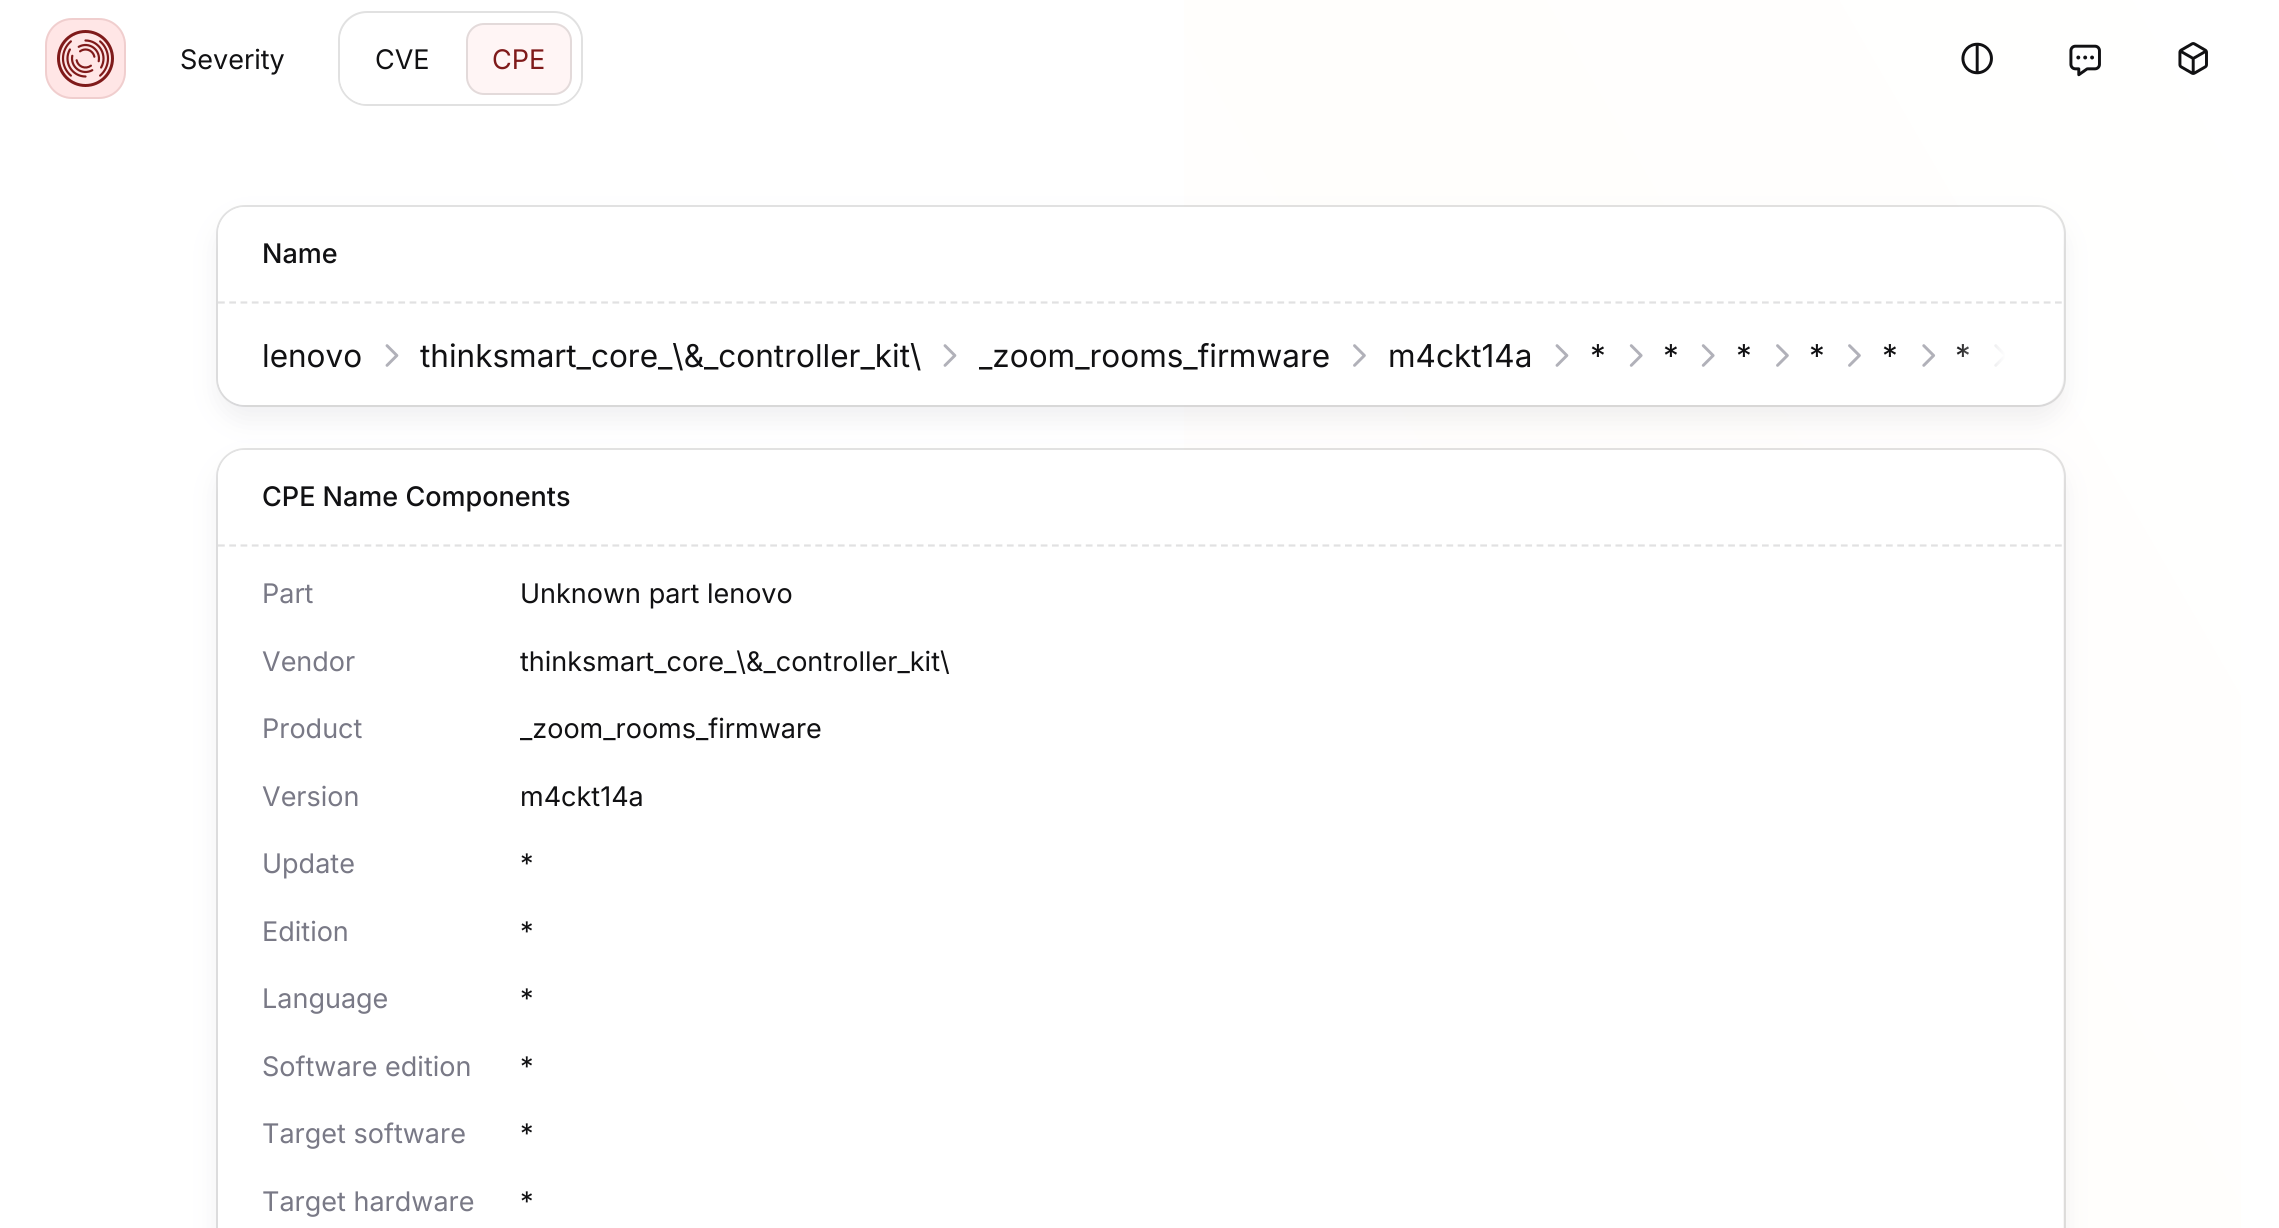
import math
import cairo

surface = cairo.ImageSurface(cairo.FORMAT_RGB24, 2279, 1228)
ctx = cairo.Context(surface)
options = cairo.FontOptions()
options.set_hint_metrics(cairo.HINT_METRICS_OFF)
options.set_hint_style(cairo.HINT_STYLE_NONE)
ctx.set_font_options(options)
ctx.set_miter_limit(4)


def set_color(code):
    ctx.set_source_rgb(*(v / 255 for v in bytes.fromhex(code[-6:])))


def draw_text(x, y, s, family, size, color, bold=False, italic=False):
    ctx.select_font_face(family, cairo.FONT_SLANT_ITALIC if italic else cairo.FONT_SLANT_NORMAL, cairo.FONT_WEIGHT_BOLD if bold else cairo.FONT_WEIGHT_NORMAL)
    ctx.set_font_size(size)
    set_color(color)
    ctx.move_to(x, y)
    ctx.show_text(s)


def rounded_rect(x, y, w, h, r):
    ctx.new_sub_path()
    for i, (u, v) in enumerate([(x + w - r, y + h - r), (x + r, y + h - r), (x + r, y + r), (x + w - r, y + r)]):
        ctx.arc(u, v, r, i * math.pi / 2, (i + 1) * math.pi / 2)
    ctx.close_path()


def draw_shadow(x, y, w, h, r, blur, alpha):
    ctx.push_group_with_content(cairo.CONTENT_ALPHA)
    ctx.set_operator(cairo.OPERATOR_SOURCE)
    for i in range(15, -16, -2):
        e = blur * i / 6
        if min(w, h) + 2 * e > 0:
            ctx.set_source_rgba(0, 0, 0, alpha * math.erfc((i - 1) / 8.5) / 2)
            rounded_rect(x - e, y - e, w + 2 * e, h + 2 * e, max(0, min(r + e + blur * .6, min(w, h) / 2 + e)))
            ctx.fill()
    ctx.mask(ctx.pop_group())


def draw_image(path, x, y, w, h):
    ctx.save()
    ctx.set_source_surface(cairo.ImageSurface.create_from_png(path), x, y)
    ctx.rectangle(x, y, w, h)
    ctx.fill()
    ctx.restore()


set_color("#ffffff")
ctx.paint()
gradient = cairo.LinearGradient(19, 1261, 2260, -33)
gradient.add_color_stop_rgba(0, 1, 1, 1, 1)
gradient.add_color_stop_rgba(0.3, 1, 1, 1, 1)
gradient.add_color_stop_rgba(0.7, 1, 0.996, 0.988, 1)
gradient.add_color_stop_rgba(1, 1, 1, 1, 1)
ctx.set_source(gradient)
ctx.rectangle(1184, 0, 1057, 1228)
ctx.fill()
set_color("#ffe6e6")
rounded_rect(45, 18, 81, 81, 27)
ctx.fill()
rounded_rect(46, 19, 79, 79, 26)
ctx.set_source_rgba(0.498, 0.102, 0.102, 0.12)
ctx.stroke()
draw_image("assets/img1.png", 57, 30, 57, 57)
draw_text(180, 69, "Severity", "Inter", 27, "#111113")
rounded_rect(339, 12, 243, 93, 28)
set_color("#e1e1e1")
ctx.stroke()
set_color("#ffffff")
rounded_rect(340, 14, 241, 90, 27)
ctx.fill()
draw_text(375, 69, "CVE", "Inter", 27, "#111113")
set_color("#fff5f5")
rounded_rect(466, 23, 106, 72, 18)
ctx.fill()
rounded_rect(467, 24, 104, 70, 17)
ctx.set_source_rgba(0.067, 0.067, 0.075, 0.12)
ctx.stroke()
draw_text(492, 69, "CPE", "Inter", 27, "#7f1a1a")
draw_image("assets/img2.png", 1961, 42, 32, 33)
draw_image("assets/img3.png", 2069, 44, 32, 33)
draw_image("assets/img4.png", 2178, 42, 30, 33)
set_color("#797986")
draw_shadow(218, 221, 1845, 198, 27, 13.5, 0.12)
rounded_rect(217, 206, 1848, 200, 28)
ctx.set_source_rgba(0.067, 0.067, 0.075, 0.12)
ctx.stroke()
set_color("#ffffff")
rounded_rect(218, 207, 1845, 198, 27)
ctx.fill()
draw_text(262, 263, "Name", "Inter Medium", 27, "#111113")
ctx.new_path()
ctx.move_to(218, 302.5)
ctx.line_to(2063, 302.5)
set_color("#e1e1e2")
ctx.set_line_width(2.2)
ctx.set_dash([6.75, 4.52])
ctx.stroke()
draw_text(262, 367, "lenovo", "Inter", 31.5, "#111113")
draw_image("assets/img5.png", 385, 344, 14, 23)
draw_text(420, 367, "thinksmart_core_\\&_controller_kit\\", "Inter", 31.5, "#111113")
draw_image("assets/img5.png", 943, 344, 14, 23)
ctx.save()
ctx.rectangle(979, 331, 351, 47)
ctx.clip()
draw_text(978, 367, "_zoom_rooms_firmware", "Inter", 31.5, "#111113")
ctx.restore()
draw_image("assets/img6.png", 1353, 344, 13, 23)
draw_text(1388, 367, "m4ckt14a", "Inter", 31.5, "#111113")
draw_image("assets/img5.png", 1555, 344, 14, 23)
draw_text(1590, 367, "*", "Inter", 31.5, "#111113")
draw_image("assets/img7.png", 1629, 344, 14, 23)
draw_text(1663, 367, "*", "Inter", 31.5, "#111113")
draw_image("assets/img7.png", 1701, 344, 14, 23)
draw_text(1736, 367, "*", "Inter", 31.5, "#111113")
draw_image("assets/img6.png", 1776, 344, 13, 23)
draw_text(1809, 367, "*", "Inter", 31.5, "#111113")
draw_image("assets/img6.png", 1848, 344, 13, 23)
draw_text(1882, 367, "*", "Inter", 31.5, "#111113")
draw_image("assets/img8.png", 1922, 344, 14, 23)
draw_text(1955, 367, "*", "Inter", 31.5, "#111113")
draw_image("assets/img9.png", 1994, 344, 11, 23)
gradient = cairo.LinearGradient(1955, 354, 2018, 354)
gradient.add_color_stop_rgba(0, 1, 1, 1, 0)
gradient.add_color_stop_rgba(0.8, 1, 1, 1, 1)
ctx.set_source(gradient)
ctx.rectangle(1957, 344, 48, 23)
ctx.fill()
set_color("#797986")
draw_shadow(218, 464, 1845, 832, 27, 13.5, 0.12)
rounded_rect(217, 449, 1848, 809, 28)
ctx.set_source_rgba(0.067, 0.067, 0.075, 0.12)
ctx.set_line_width(2)
ctx.set_dash([])
ctx.stroke()
set_color("#ffffff")
ctx.new_path()
ctx.move_to(245, 450)
ctx.line_to(2036, 450)
ctx.curve_to(2051, 450, 2063, 462, 2063, 477)
ctx.line_to(2063, 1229)
ctx.line_to(218, 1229)
ctx.line_to(218, 477)
ctx.curve_to(218, 462, 230, 450, 245, 450)
ctx.close_path()
ctx.fill()
draw_text(262, 506, "CPE Name Components", "Inter Medium", 27, "#111113")
ctx.new_path()
ctx.move_to(218, 545.5)
ctx.line_to(2063, 545.5)
set_color("#e1e1e2")
ctx.set_line_width(2.2)
ctx.set_dash([6.75, 4.52])
ctx.stroke()
draw_text(262, 603, "Part", "Inter", 27, "#797986")
draw_text(520, 603, "Unknown part lenovo", "Inter", 27, "#111113")
draw_text(262, 671, "Vendor", "Inter", 27, "#797986")
draw_text(520, 671, "thinksmart_core_\\&_controller_kit\\", "Inter", 27, "#111113")
draw_text(262, 738, "Product", "Inter", 27, "#797986")
draw_text(520, 738, "_zoom_rooms_firmware", "Inter", 27, "#111113")
draw_text(262, 806, "Version", "Inter", 27, "#797986")
draw_text(520, 806, "m4ckt14a", "Inter", 27, "#111113")
draw_text(262, 873, "Update", "Inter", 27, "#797986")
draw_text(520, 873, "*", "Inter", 27, "#111113")
draw_text(262, 941, "Edition", "Inter", 27, "#797986")
draw_text(520, 941, "*", "Inter", 27, "#111113")
draw_text(262, 1008, "Language", "Inter", 27, "#797986")
draw_text(520, 1008, "*", "Inter", 27, "#111113")
draw_text(262, 1076, "Software edition", "Inter", 27, "#797986")
draw_text(520, 1076, "*", "Inter", 27, "#111113")
draw_text(262, 1143, "Target software", "Inter", 27, "#797986")
draw_text(520, 1143, "*", "Inter", 27, "#111113")
draw_text(262, 1211, "Target hardware", "Inter", 27, "#797986")
draw_text(520, 1211, "*", "Inter", 27, "#111113")
surface.write_to_png("output.png")
